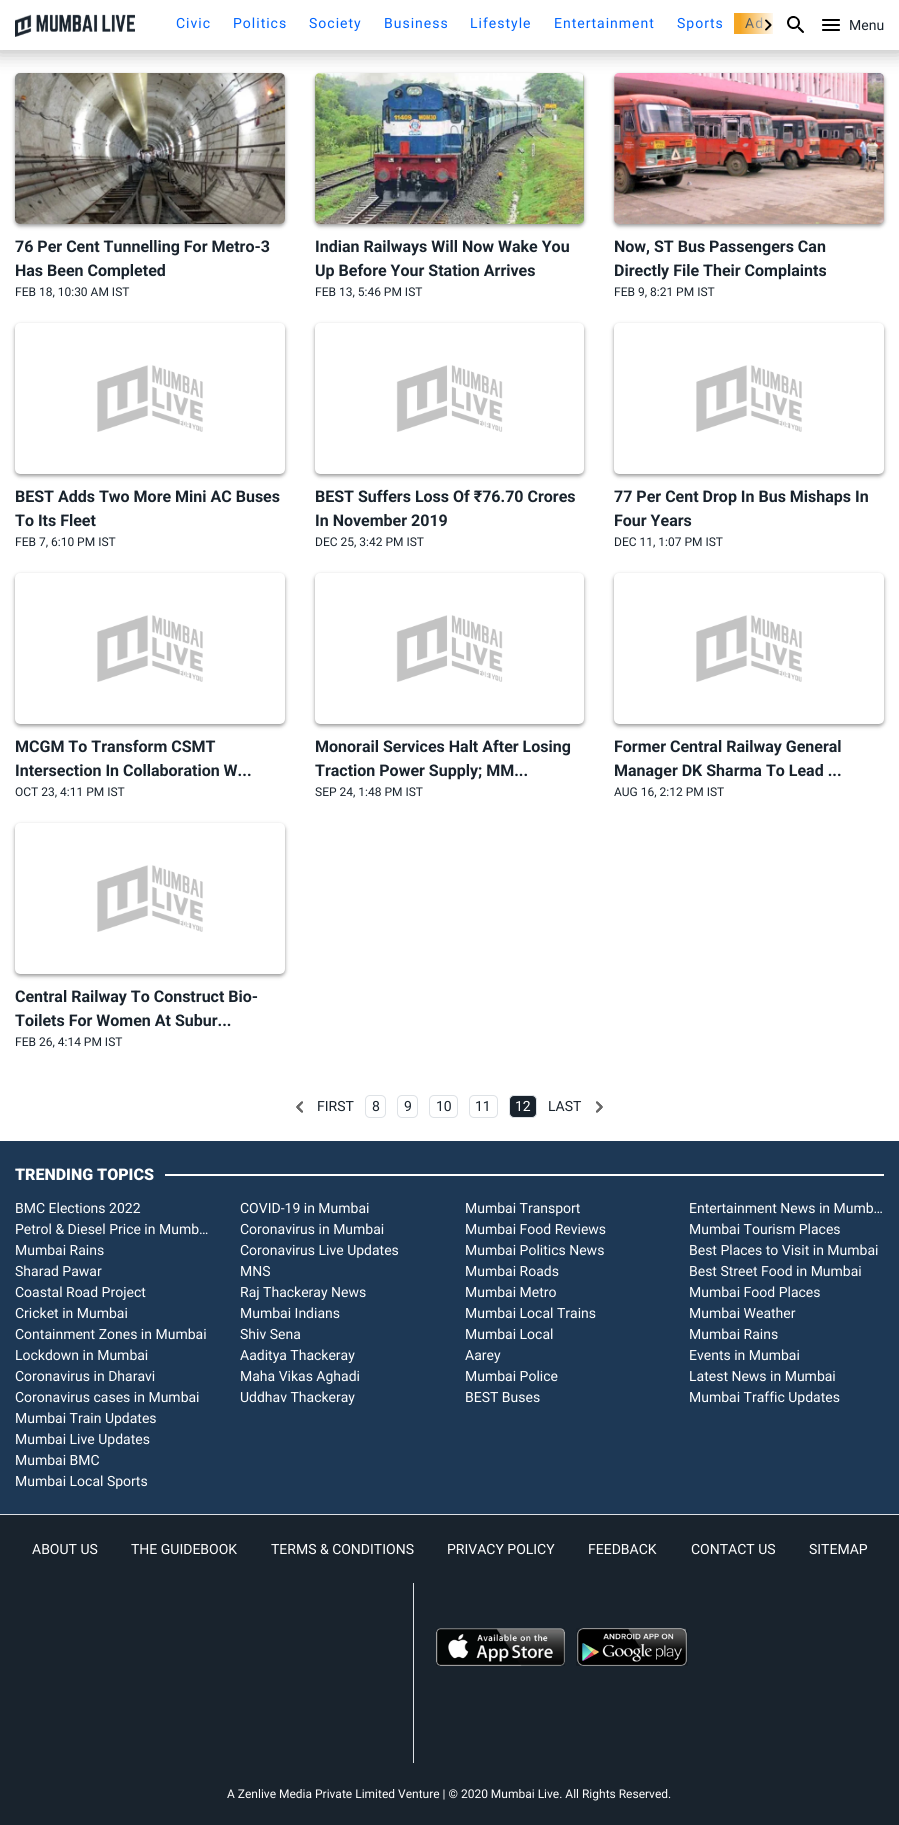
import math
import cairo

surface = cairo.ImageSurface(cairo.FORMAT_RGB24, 899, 1825)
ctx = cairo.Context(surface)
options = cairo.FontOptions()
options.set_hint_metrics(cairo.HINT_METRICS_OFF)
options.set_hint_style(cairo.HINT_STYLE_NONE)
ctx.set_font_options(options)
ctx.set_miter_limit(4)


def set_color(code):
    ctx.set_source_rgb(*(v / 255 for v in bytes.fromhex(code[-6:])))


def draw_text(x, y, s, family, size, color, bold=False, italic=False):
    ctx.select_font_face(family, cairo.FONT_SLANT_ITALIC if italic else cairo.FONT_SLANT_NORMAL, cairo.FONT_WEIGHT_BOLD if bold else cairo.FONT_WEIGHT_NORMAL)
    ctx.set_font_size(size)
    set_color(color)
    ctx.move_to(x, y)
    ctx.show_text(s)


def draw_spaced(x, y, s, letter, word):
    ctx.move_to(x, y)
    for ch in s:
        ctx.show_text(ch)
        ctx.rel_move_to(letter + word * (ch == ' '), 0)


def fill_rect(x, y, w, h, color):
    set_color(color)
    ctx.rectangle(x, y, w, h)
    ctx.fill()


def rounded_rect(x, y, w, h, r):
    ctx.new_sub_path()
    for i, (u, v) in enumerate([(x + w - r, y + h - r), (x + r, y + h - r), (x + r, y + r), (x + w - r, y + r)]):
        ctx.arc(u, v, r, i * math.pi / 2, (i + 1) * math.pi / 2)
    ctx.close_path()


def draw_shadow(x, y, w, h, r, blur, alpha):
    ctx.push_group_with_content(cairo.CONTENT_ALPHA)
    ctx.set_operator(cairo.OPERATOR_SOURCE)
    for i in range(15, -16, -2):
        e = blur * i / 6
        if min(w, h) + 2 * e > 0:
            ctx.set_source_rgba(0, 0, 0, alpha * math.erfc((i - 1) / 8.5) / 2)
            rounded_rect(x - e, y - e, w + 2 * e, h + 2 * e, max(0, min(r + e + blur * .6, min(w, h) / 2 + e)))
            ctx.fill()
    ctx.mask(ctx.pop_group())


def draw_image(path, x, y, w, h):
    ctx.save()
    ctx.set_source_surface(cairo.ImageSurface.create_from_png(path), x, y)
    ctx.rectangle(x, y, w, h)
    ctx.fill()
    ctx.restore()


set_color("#ffffff")
ctx.paint()
set_color("#000000")
draw_shadow(15, 75, 270, 151, 5, 2, 0.4)
draw_image("assets/img5.png", 15, 73, 270, 151)
draw_shadow(315, 75, 269, 151, 5, 2, 0.4)
draw_image("assets/img6.png", 315, 73, 269, 151)
draw_shadow(614, 75, 270, 151, 5, 2, 0.4)
draw_image("assets/img7.png", 614, 73, 270, 151)
draw_shadow(-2, -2, 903, 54, 0, 10, 0.3)
fill_rect(0, 0, 899, 50, "#ffffff")
draw_image("assets/img1.png", 15, 14, 120, 23)
fill_rect(734, 13, 39, 21, "#f5a623")
ctx.select_font_face("Roboto")
ctx.set_font_size(14)
set_color("#19232d")
draw_spaced(745, 28, "Ad", 1, 0)
gradient = cairo.LinearGradient(780, 23, 740, 24)
gradient.add_color_stop_rgba(0.1, 1, 1, 1, 1)
gradient.add_color_stop_rgba(1, 1, 1, 1, 0)
ctx.set_source(gradient)
ctx.rectangle(741, 13, 32, 21)
ctx.fill()
draw_image("assets/img2.png", 765, 19, 7, 12)
set_color("#0064ff")
draw_spaced(176, 28, "Civic", 1, 0)
draw_spaced(233, 28, "Politics", 1, 0)
draw_spaced(309, 28, "Society", 1, 0)
draw_spaced(384, 28, "Business", 1, 0)
draw_spaced(470, 28, "Lifestyle", 1, 0)
draw_spaced(554, 28, "Entertainment", 1, 0)
draw_spaced(677, 28, "Sports", 1, 0)
draw_image("assets/img3.png", 787, 16, 17, 17)
draw_image("assets/img4.png", 822, 19, 18, 12)
draw_text(849, 30, "Menu", "Roboto", 14, "#19232d")
draw_text(15, 252, "76 Per Cent Tunnelling For Metro-3", "Roboto", 16, "#19232d", bold=True)
draw_text(15, 276, "Has Been Completed", "Roboto", 16, "#19232d", bold=True)
draw_text(15, 296, "FEB 18, 10:30 AM IST", "Roboto", 12, "#19232d")
draw_text(315, 252, "Indian Railways Will Now Wake You", "Roboto", 16, "#19232d", bold=True)
draw_text(315, 276, "Up Before Your Station Arrives", "Roboto", 16, "#19232d", bold=True)
draw_text(315, 296, "FEB 13, 5:46 PM IST", "Roboto", 12, "#19232d")
draw_text(614, 252, "Now, ST Bus Passengers Can", "Roboto", 16, "#19232d", bold=True)
draw_text(614, 276, "Directly File Their Complaints", "Roboto", 16, "#19232d", bold=True)
draw_text(614, 296, "FEB 9, 8:21 PM IST", "Roboto", 12, "#19232d")
set_color("#000000")
draw_shadow(15, 325, 270, 151, 5, 2, 0.4)
draw_image("assets/img8.png", 15, 323, 270, 151)
draw_text(15, 502, "BEST Adds Two More Mini AC Buses", "Roboto", 16, "#19232d", bold=True)
draw_text(15, 526, "To Its Fleet", "Roboto", 16, "#19232d", bold=True)
draw_text(15, 546, "FEB 7, 6:10 PM IST", "Roboto", 12, "#19232d")
set_color("#000000")
draw_shadow(315, 325, 269, 151, 5, 2, 0.4)
draw_image("assets/img9.png", 315, 323, 269, 151)
draw_text(315, 502, "BEST Suffers Loss Of ₹76.70 Crores", "Roboto", 16, "#19232d", bold=True)
draw_text(315, 526, "In November 2019", "Roboto", 16, "#19232d", bold=True)
draw_text(315, 546, "DEC 25, 3:42 PM IST", "Roboto", 12, "#19232d")
set_color("#000000")
draw_shadow(614, 325, 270, 151, 5, 2, 0.4)
draw_image("assets/img8.png", 614, 323, 270, 151)
draw_text(614, 502, "77 Per Cent Drop In Bus Mishaps In", "Roboto", 16, "#19232d", bold=True)
draw_text(614, 526, "Four Years", "Roboto", 16, "#19232d", bold=True)
draw_text(614, 546, "DEC 11, 1:07 PM IST", "Roboto", 12, "#19232d")
set_color("#000000")
draw_shadow(15, 575, 270, 151, 5, 2, 0.4)
draw_image("assets/img8.png", 15, 573, 270, 151)
draw_text(15, 752, "MCGM To Transform CSMT", "Roboto", 16, "#19232d", bold=True)
draw_text(15, 776, "Intersection In Collaboration W...", "Roboto", 16, "#19232d", bold=True)
draw_text(15, 796, "OCT 23, 4:11 PM IST", "Roboto", 12, "#19232d")
set_color("#000000")
draw_shadow(315, 575, 269, 151, 5, 2, 0.4)
draw_image("assets/img9.png", 315, 573, 269, 151)
draw_text(315, 752, "Monorail Services Halt After Losing", "Roboto", 16, "#19232d", bold=True)
draw_text(315, 776, "Traction Power Supply; MM...", "Roboto", 16, "#19232d", bold=True)
draw_text(315, 796, "SEP 24, 1:48 PM IST", "Roboto", 12, "#19232d")
set_color("#000000")
draw_shadow(614, 575, 270, 151, 5, 2, 0.4)
draw_image("assets/img8.png", 614, 573, 270, 151)
draw_text(614, 752, "Former Central Railway General", "Roboto", 16, "#19232d", bold=True)
draw_text(614, 776, "Manager DK Sharma To Lead ...", "Roboto", 16, "#19232d", bold=True)
draw_text(614, 796, "AUG 16, 2:12 PM IST", "Roboto", 12, "#19232d")
set_color("#000000")
draw_shadow(15, 825, 270, 151, 5, 2, 0.4)
draw_image("assets/img8.png", 15, 823, 270, 151)
draw_text(15, 1002, "Central Railway To Construct Bio-", "Roboto", 16, "#19232d", bold=True)
draw_text(15, 1026, "Toilets For Women At Subur...", "Roboto", 16, "#19232d", bold=True)
draw_text(15, 1046, "FEB 26, 4:14 PM IST", "Roboto", 12, "#19232d")
draw_image("assets/img10.png", 296, 1101, 7, 12)
draw_text(317, 1111, "FIRST", "Roboto", 14, "#19232d")
rounded_rect(365.5, 1095.5, 20, 22, 4.5)
set_color("#dee2e6")
ctx.set_line_width(1)
ctx.stroke()
draw_text(372, 1111, "8", "Roboto", 14, "#19232d")
rounded_rect(397.5, 1095.5, 20, 22, 4.5)
set_color("#dee2e6")
ctx.stroke()
draw_text(404, 1111, "9", "Roboto", 14, "#19232d")
rounded_rect(429.5, 1095.5, 28, 22, 4.5)
set_color("#dee2e6")
ctx.stroke()
draw_text(436, 1111, "10", "Roboto", 14, "#19232d")
rounded_rect(469.5, 1095.5, 28, 22, 4.5)
set_color("#dee2e6")
ctx.stroke()
draw_text(475, 1111, "11", "Roboto", 14, "#19232d")
rounded_rect(509.5, 1095.5, 27, 22, 4.5)
ctx.fill_preserve()
set_color("#dee2e6")
ctx.stroke()
draw_text(515, 1111, "12", "Roboto", 14, "#ffffff")
draw_text(548, 1111, "LAST", "Roboto", 14, "#19232d")
draw_image("assets/img11.png", 596, 1101, 7, 12)
fill_rect(0, 1141, 899, 373, "#1d3855")
fill_rect(0, 1514, 899, 1, "#dee2e6")
draw_text(15, 1180, "TRENDING TOPICS", "Roboto Black", 16, "#ffffff")
fill_rect(165, 1174, 719, 2, "#ffffff")
draw_text(15, 1213, "BMC Elections 2022", "Roboto", 14, "#ffffff")
draw_text(15, 1234, "Petrol & Diesel Price in Mumb…", "Roboto", 14, "#ffffff")
draw_text(15, 1255, "Mumbai Rains", "Roboto", 14, "#ffffff")
draw_text(15, 1276, "Sharad Pawar", "Roboto", 14, "#ffffff")
draw_text(15, 1297, "Coastal Road Project", "Roboto", 14, "#ffffff")
draw_text(15, 1318, "Cricket in Mumbai", "Roboto", 14, "#ffffff")
draw_text(15, 1339, "Containment Zones in Mumbai", "Roboto", 14, "#ffffff")
draw_text(15, 1360, "Lockdown in Mumbai", "Roboto", 14, "#ffffff")
draw_text(15, 1381, "Coronavirus in Dharavi", "Roboto", 14, "#ffffff")
draw_text(15, 1402, "Coronavirus cases in Mumbai", "Roboto", 14, "#ffffff")
draw_text(240, 1213, "COVID-19 in Mumbai", "Roboto", 14, "#ffffff")
draw_text(240, 1234, "Coronavirus in Mumbai", "Roboto", 14, "#ffffff")
draw_text(240, 1255, "Coronavirus Live Updates", "Roboto", 14, "#ffffff")
draw_text(240, 1276, "MNS", "Roboto", 14, "#ffffff")
draw_text(240, 1297, "Raj Thackeray News", "Roboto", 14, "#ffffff")
draw_text(240, 1318, "Mumbai Indians", "Roboto", 14, "#ffffff")
draw_text(240, 1339, "Shiv Sena", "Roboto", 14, "#ffffff")
draw_text(240, 1360, "Aaditya Thackeray", "Roboto", 14, "#ffffff")
draw_text(240, 1381, "Maha Vikas Aghadi", "Roboto", 14, "#ffffff")
draw_text(240, 1402, "Uddhav Thackeray", "Roboto", 14, "#ffffff")
draw_text(465, 1213, "Mumbai Transport", "Roboto", 14, "#ffffff")
draw_text(465, 1234, "Mumbai Food Reviews", "Roboto", 14, "#ffffff")
draw_text(465, 1255, "Mumbai Politics News", "Roboto", 14, "#ffffff")
draw_text(465, 1276, "Mumbai Roads", "Roboto", 14, "#ffffff")
draw_text(465, 1297, "Mumbai Metro", "Roboto", 14, "#ffffff")
draw_text(465, 1318, "Mumbai Local Trains", "Roboto", 14, "#ffffff")
draw_text(465, 1339, "Mumbai Local", "Roboto", 14, "#ffffff")
draw_text(465, 1360, "Aarey", "Roboto", 14, "#ffffff")
draw_text(465, 1381, "Mumbai Police", "Roboto", 14, "#ffffff")
draw_text(465, 1402, "BEST Buses", "Roboto", 14, "#ffffff")
draw_text(689, 1213, "Entertainment News in Mumb…", "Roboto", 14, "#ffffff")
draw_text(689, 1234, "Mumbai Tourism Places", "Roboto", 14, "#ffffff")
draw_text(689, 1255, "Best Places to Visit in Mumbai", "Roboto", 14, "#ffffff")
draw_text(689, 1276, "Best Street Food in Mumbai", "Roboto", 14, "#ffffff")
draw_text(689, 1297, "Mumbai Food Places", "Roboto", 14, "#ffffff")
draw_text(689, 1318, "Mumbai Weather", "Roboto", 14, "#ffffff")
draw_text(689, 1339, "Mumbai Rains", "Roboto", 14, "#ffffff")
draw_text(689, 1360, "Events in Mumbai", "Roboto", 14, "#ffffff")
draw_text(689, 1381, "Latest News in Mumbai", "Roboto", 14, "#ffffff")
draw_text(689, 1402, "Mumbai Traffic Updates", "Roboto", 14, "#ffffff")
draw_text(15, 1423, "Mumbai Train Updates", "Roboto", 14, "#ffffff")
draw_text(15, 1444, "Mumbai Live Updates", "Roboto", 14, "#ffffff")
draw_text(15, 1465, "Mumbai BMC", "Roboto", 14, "#ffffff")
draw_text(15, 1486, "Mumbai Local Sports", "Roboto", 14, "#ffffff")
fill_rect(0, 1515, 899, 310, "#19232d")
draw_text(32, 1554, "ABOUT US", "Roboto", 14, "#ffffff")
draw_text(131, 1554, "THE GUIDEBOOK", "Roboto", 14, "#ffffff")
draw_text(271, 1554, "TERMS & CONDITIONS", "Roboto", 14, "#ffffff")
draw_text(447, 1554, "PRIVACY POLICY", "Roboto", 14, "#ffffff")
draw_text(588, 1554, "FEEDBACK", "Roboto", 14, "#ffffff")
draw_text(691, 1554, "CONTACT US", "Roboto", 14, "#ffffff")
draw_text(809, 1554, "SITEMAP", "Roboto", 14, "#ffffff")
fill_rect(413, 1583, 1, 180, "#dee2e6")
draw_image("assets/img12.png", 436, 1628, 129, 38)
draw_image("assets/img13.png", 576, 1628, 112, 38)
draw_text(227, 1798, "A Zenlive Media Private Limited Venture | © 2020 Mumbai Live. All Rights Reserved.", "Roboto", 12, "#ffffff")
surface.write_to_png("output.png")
